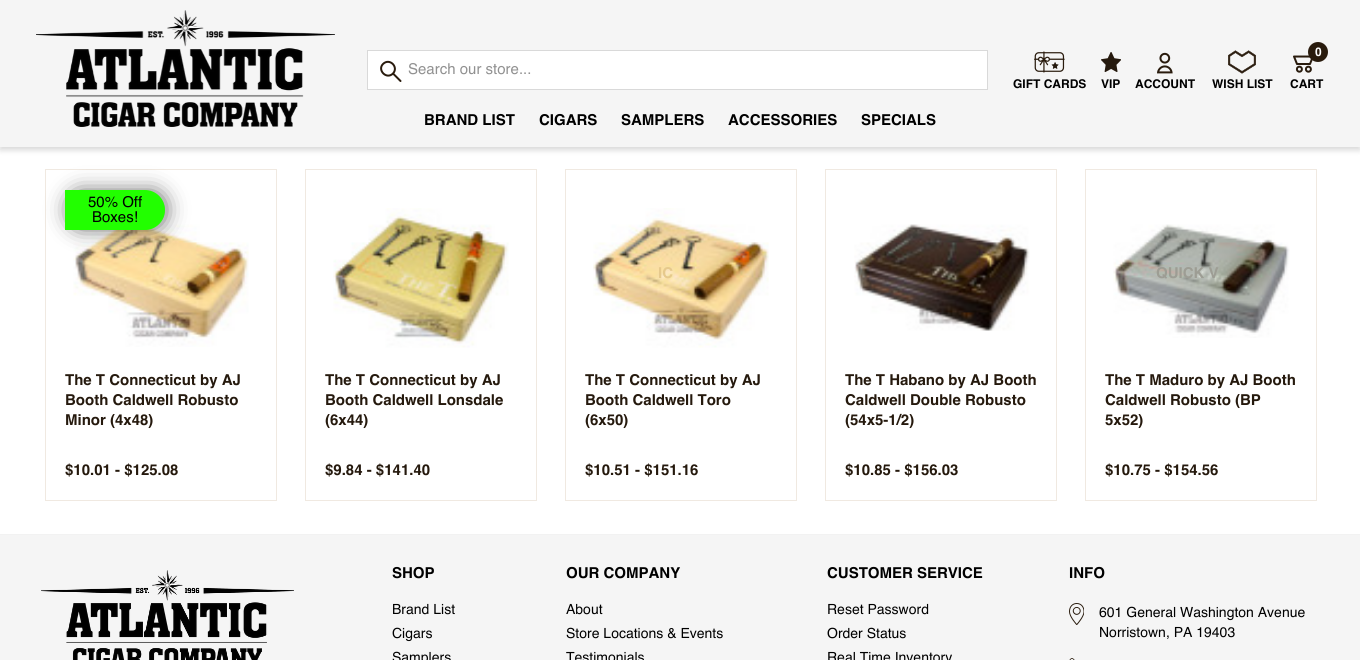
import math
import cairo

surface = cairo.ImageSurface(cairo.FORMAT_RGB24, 1360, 660)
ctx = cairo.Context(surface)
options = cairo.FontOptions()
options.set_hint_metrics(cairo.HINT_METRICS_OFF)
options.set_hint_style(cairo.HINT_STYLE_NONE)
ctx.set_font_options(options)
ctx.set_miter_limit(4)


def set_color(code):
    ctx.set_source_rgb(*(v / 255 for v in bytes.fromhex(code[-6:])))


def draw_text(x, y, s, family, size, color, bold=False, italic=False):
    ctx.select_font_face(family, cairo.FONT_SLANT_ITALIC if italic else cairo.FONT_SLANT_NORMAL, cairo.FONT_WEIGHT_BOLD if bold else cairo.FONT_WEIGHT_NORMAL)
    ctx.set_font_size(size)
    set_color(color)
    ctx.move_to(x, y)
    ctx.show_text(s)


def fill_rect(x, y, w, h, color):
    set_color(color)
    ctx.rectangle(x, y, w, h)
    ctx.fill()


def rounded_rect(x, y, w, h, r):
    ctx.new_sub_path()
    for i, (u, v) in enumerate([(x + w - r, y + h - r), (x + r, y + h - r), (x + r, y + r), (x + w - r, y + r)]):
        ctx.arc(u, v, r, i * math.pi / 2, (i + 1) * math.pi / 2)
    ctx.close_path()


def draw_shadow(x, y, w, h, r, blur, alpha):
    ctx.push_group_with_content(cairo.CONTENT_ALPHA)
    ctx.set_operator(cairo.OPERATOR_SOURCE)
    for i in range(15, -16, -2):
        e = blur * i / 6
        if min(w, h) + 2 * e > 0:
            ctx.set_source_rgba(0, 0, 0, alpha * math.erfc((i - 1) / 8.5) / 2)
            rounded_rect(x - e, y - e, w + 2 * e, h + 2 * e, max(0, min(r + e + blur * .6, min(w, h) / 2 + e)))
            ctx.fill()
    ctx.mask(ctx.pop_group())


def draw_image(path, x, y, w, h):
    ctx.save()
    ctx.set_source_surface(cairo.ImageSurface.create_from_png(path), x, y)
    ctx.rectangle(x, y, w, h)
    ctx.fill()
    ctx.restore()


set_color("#ffffff")
ctx.paint()
set_color("#000000")
draw_shadow(0, 3, 1360, 147, 0, 3, 0.16)
fill_rect(0, 0, 1360, 147, "#f5f5f5")
draw_image("assets/img1.png", 36, 10, 299, 117)
set_color("#ffffff")
ctx.rectangle(367.5, 50.5, 620, 39)
ctx.fill_preserve()
set_color("#d9d9d9")
ctx.set_line_width(1)
ctx.stroke()
ctx.new_path()
ctx.move_to(383, 64)
ctx.curve_to(389.5, 57.5, 399, 67, 393, 73.5)
ctx.curve_to(386.5, 80, 377, 70, 383, 64)
ctx.close_path()
set_color("#291b0d")
ctx.set_line_width(2)
ctx.stroke()
ctx.new_path()
ctx.move_to(393.5, 74)
ctx.line_to(400.5, 81)
ctx.set_line_cap(cairo.LINE_CAP_ROUND)
ctx.stroke()
draw_text(408, 74, "Search our store...", "Helvetica", 15, "#919191")
draw_image("assets/img2.png", 1034, 51, 31, 22)
draw_text(1013, 88, "GIFT CARDS", "Helvetica", 12, "#000000", bold=True)
draw_image("assets/img3.png", 1101, 52, 20, 20)
draw_text(1101, 88, "VIP", "Helvetica", 12, "#000000", bold=True)
draw_image("assets/img4.png", 1157, 52, 16, 22)
draw_text(1135, 88, "ACCOUNT", "Helvetica", 12, "#000000", bold=True)
draw_image("assets/img5.png", 1228, 50, 28, 24)
draw_text(1212, 88, "WISH LIST", "Helvetica", 12, "#000000", bold=True)
ctx.new_path()
ctx.move_to(1318, 52.5)
ctx.line_to(1314.5, 52.5)
ctx.line_to(1310, 64)
ctx.line_to(1297, 64)
ctx.line_to(1294, 56.5)
ctx.line_to(1312.5, 56.5)
set_color("#291b0d")
ctx.set_line_join(cairo.LINE_JOIN_ROUND)
ctx.stroke()
ctx.arc(1318, 52, 10, 0, 2 * math.pi)
ctx.fill()
draw_text(1315, 56, "0", "Helvetica", 12, "#ffffff", bold=True)
ctx.new_path()
ctx.arc(1299.4, 69.2, 2.5, 0, 2 * math.pi)
set_color("#291b0d")
ctx.set_line_cap(cairo.LINE_CAP_BUTT)
ctx.set_line_join(cairo.LINE_JOIN_MITER)
ctx.stroke()
ctx.arc(1308.4, 69.2, 2.5, 0, 2 * math.pi)
ctx.stroke()
draw_text(1290, 88, "CART", "Helvetica", 12, "#000000", bold=True)
draw_text(424, 125, "BRAND LIST", "Helvetica", 15, "#000000", bold=True)
draw_text(539, 125, "CIGARS", "Helvetica", 15, "#000000", bold=True)
draw_text(621, 125, "SAMPLERS", "Helvetica", 15, "#000000", bold=True)
draw_text(728, 125, "ACCESSORIES", "Helvetica", 15, "#000000", bold=True)
draw_text(861, 125, "SPECIALS", "Helvetica", 15, "#000000", bold=True)
ctx.rectangle(45.5, 169.5, 231, 331)
set_color("#f0e9e1")
ctx.set_line_width(1)
ctx.stroke()
draw_image("assets/img6.png", 73, 208, 176, 139)
set_color("#000000")
draw_shadow(71, 194, 92, 32, 16, 11.5, 0.75)
set_color("#22ff00")
ctx.new_path()
ctx.move_to(65, 190)
ctx.line_to(145, 190)
ctx.curve_to(156, 190, 165, 199, 165, 210)
ctx.curve_to(165, 221, 156, 230, 145, 230)
ctx.line_to(65, 230)
ctx.close_path()
ctx.fill()
draw_text(88, 207, "50% Off", "Helvetica", 15, "#000000")
draw_text(92, 222, "Boxes!", "Helvetica", 15, "#000000")
draw_text(65, 385, "The T Connecticut by AJ", "Helvetica", 15, "#25190d", bold=True)
draw_text(65, 405, "Booth Caldwell Robusto", "Helvetica", 15, "#25190d", bold=True)
draw_text(65, 425, "Minor (4x48)", "Helvetica", 15, "#25190d", bold=True)
draw_text(65, 475, "$10.01 - $125.08", "Helvetica", 15, "#25190d", bold=True)
ctx.rectangle(305.5, 169.5, 231, 331)
set_color("#f0e9e1")
ctx.stroke()
draw_image("assets/img7.png", 333, 208, 176, 140)
draw_text(325, 385, "The T Connecticut by AJ", "Helvetica", 15, "#25190d", bold=True)
draw_text(325, 405, "Booth Caldwell Lonsdale", "Helvetica", 15, "#25190d", bold=True)
draw_text(325, 425, "(6x44)", "Helvetica", 15, "#25190d", bold=True)
draw_text(325, 475, "$9.84 - $141.40", "Helvetica", 15, "#25190d", bold=True)
ctx.rectangle(565.5, 169.5, 231, 331)
set_color("#f0e9e1")
ctx.stroke()
draw_image("assets/img8.png", 593, 208, 176, 140)
draw_text(658, 278, "IC", "Helvetica", 15, "#e6c98c", bold=True)
draw_text(585, 385, "The T Connecticut by AJ", "Helvetica", 15, "#25190d", bold=True)
draw_text(585, 405, "Booth Caldwell Toro", "Helvetica", 15, "#25190d", bold=True)
draw_text(585, 425, "(6x50)", "Helvetica", 15, "#25190d", bold=True)
draw_text(585, 475, "$10.51 - $151.16", "Helvetica", 15, "#25190d", bold=True)
ctx.rectangle(825.5, 169.5, 231, 331)
set_color("#f0e9e1")
ctx.stroke()
draw_image("assets/img9.png", 854, 224, 176, 107)
draw_text(845, 385, "The T Habano by AJ Booth", "Helvetica", 15, "#25190d", bold=True)
draw_text(845, 405, "Caldwell Double Robusto", "Helvetica", 15, "#25190d", bold=True)
draw_text(845, 425, "(54x5-1/2)", "Helvetica", 15, "#25190d", bold=True)
draw_text(845, 475, "$10.85 - $156.03", "Helvetica", 15, "#25190d", bold=True)
ctx.rectangle(1085.5, 169.5, 231, 331)
set_color("#f0e9e1")
ctx.stroke()
draw_image("assets/img10.png", 1113, 224, 177, 114)
draw_text(1156, 278, "QUICK V", "Helvetica", 15, "#9d9d94", bold=True)
draw_text(1105, 385, "The T Maduro by AJ Booth", "Helvetica", 15, "#25190d", bold=True)
draw_text(1105, 405, "Caldwell Robusto (BP", "Helvetica", 15, "#25190d", bold=True)
draw_text(1105, 425, "5x52)", "Helvetica", 15, "#25190d", bold=True)
draw_text(1105, 475, "$10.75 - $154.56", "Helvetica", 15, "#25190d", bold=True)
fill_rect(0, 535, 1360, 125, "#f5f5f5")
fill_rect(0, 534, 1360, 1, "#f2f2f2")
draw_image("assets/img11.png", 41, 570, 253, 90)
draw_text(392, 578, "SHOP", "Helvetica", 15, "#000000", bold=True)
draw_text(392, 614, "Brand List", "Helvetica", 14, "#000000")
draw_text(392, 638, "Cigars", "Helvetica", 14, "#000000")
draw_text(392, 662, "Samplers", "Helvetica", 14, "#000000")
draw_text(566, 578, "OUR COMPANY", "Helvetica", 15, "#000000", bold=True)
draw_text(566, 614, "About", "Helvetica", 14, "#000000")
draw_text(566, 638, "Store Locations & Events", "Helvetica", 14, "#000000")
draw_text(566, 662, "Testimonials", "Helvetica", 14, "#000000")
draw_text(827, 578, "CUSTOMER SERVICE", "Helvetica", 15, "#000000", bold=True)
draw_text(827, 614, "Reset Password", "Helvetica", 14, "#000000")
draw_text(827, 638, "Order Status", "Helvetica", 14, "#000000")
draw_text(827, 662, "Real Time Inventory", "Helvetica", 14, "#000000")
draw_text(1069, 578, "INFO", "Helvetica", 15, "#000000", bold=True)
draw_image("assets/img12.png", 1069, 603, 15, 22)
draw_text(1099, 617, "601 General Washington Avenue", "Helvetica", 14, "#000000")
draw_text(1099, 637, "Norristown, PA 19403", "Helvetica", 14, "#000000")
draw_image("assets/img13.png", 1069, 658, 6, 2)
surface.write_to_png("output.png")
